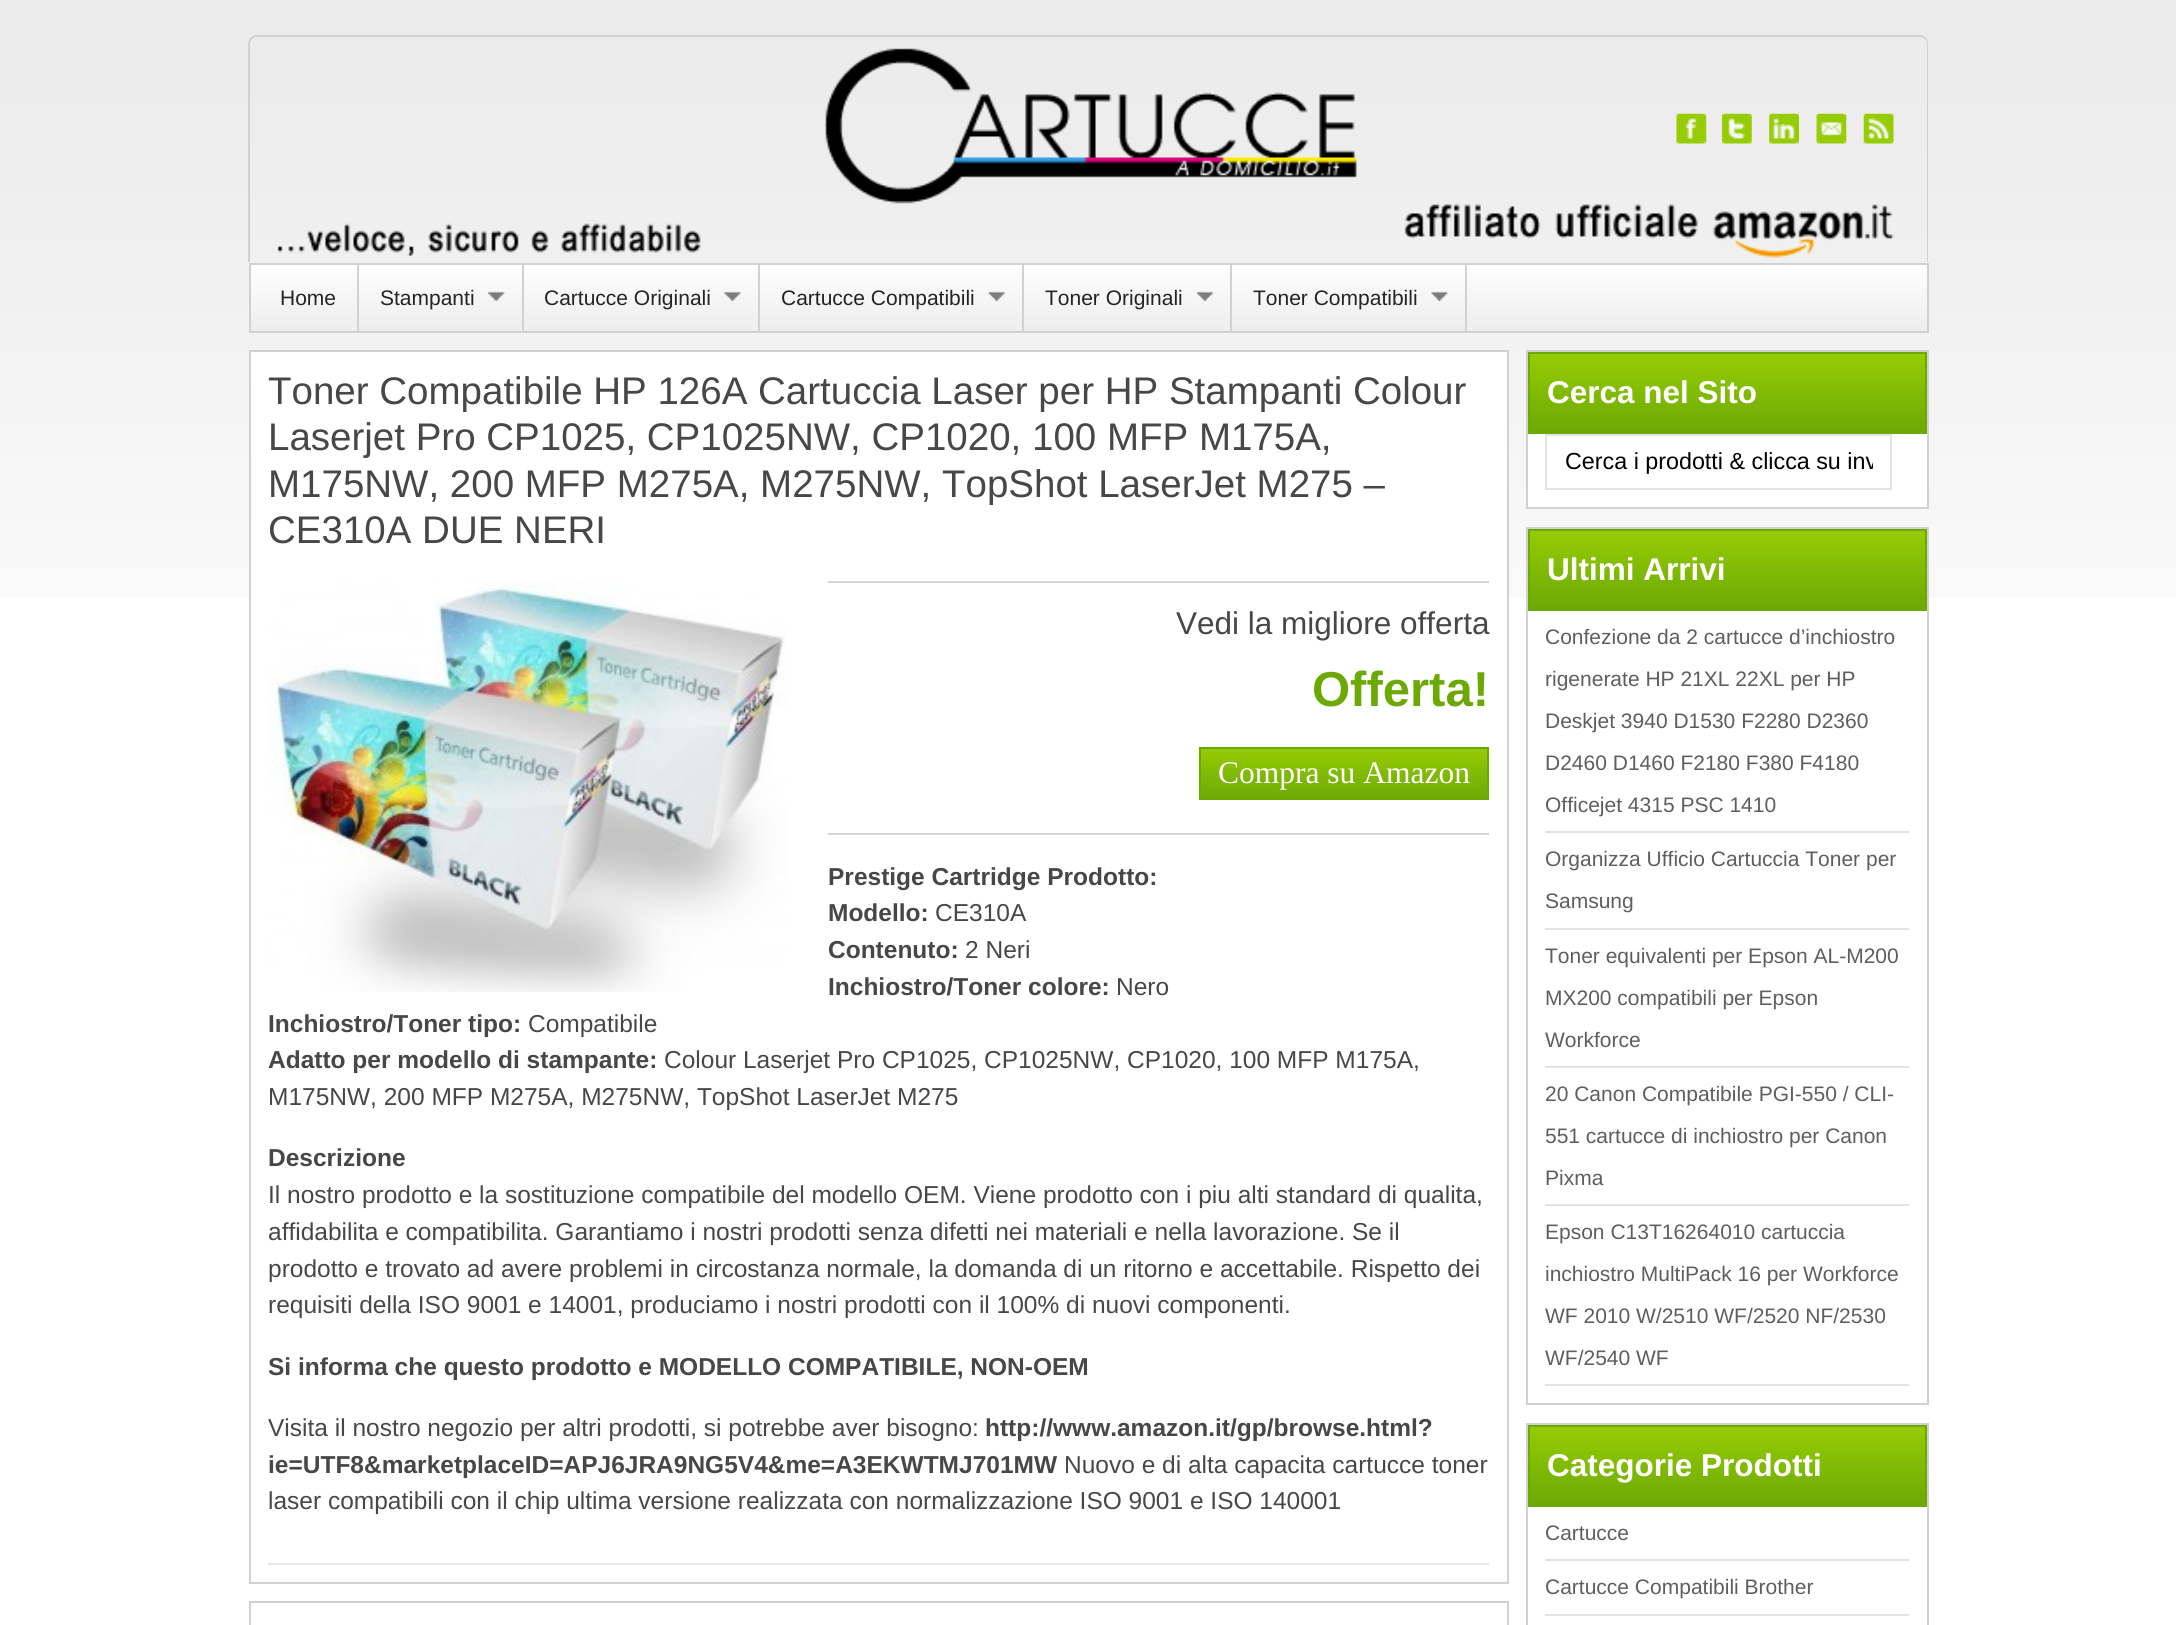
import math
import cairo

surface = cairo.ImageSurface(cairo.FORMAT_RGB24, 2176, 1625)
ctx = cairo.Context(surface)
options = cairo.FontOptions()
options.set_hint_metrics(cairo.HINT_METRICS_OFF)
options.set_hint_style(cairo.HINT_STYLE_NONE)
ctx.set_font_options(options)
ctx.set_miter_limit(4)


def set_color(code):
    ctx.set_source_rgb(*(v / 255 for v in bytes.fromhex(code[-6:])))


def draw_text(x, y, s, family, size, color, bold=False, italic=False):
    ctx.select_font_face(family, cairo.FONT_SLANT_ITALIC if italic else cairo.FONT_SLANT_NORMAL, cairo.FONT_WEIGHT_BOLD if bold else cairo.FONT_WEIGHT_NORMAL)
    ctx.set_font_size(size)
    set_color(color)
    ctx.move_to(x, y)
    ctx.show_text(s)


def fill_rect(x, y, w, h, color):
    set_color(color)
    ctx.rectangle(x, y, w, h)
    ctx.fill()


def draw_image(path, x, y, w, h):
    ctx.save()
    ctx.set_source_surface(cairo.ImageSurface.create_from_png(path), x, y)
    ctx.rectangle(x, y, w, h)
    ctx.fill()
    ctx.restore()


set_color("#ffffff")
ctx.paint()
draw_image("assets/img1.png", 0, 0, 2176, 598)
draw_image("assets/img2.png", 277, 48, 1617, 210)
set_color("#d1d1d1")
ctx.set_fill_rule(cairo.FILL_RULE_EVEN_ODD)
ctx.new_path()
ctx.move_to(257, 35)
ctx.line_to(1920, 35)
ctx.curve_to(1925, 35, 1928, 39, 1928, 44)
ctx.line_to(1928, 262)
ctx.line_to(248, 262)
ctx.line_to(248, 44)
ctx.curve_to(248, 39, 252, 35, 257, 35)
ctx.close_path()
ctx.move_to(257, 37)
ctx.line_to(1920, 37)
ctx.curve_to(1924, 37, 1927, 40, 1927, 44)
ctx.line_to(1927, 262)
ctx.line_to(250, 262)
ctx.line_to(250, 44)
ctx.curve_to(250, 40, 253, 37, 257, 37)
ctx.close_path()
ctx.fill()
draw_image("assets/img3.png", 1676, 113, 31, 31)
draw_image("assets/img4.png", 1722, 113, 30, 31)
draw_image("assets/img5.png", 1769, 113, 30, 31)
draw_image("assets/img6.png", 1816, 113, 31, 31)
draw_image("assets/img7.png", 1863, 113, 31, 31)
gradient = cairo.LinearGradient(1089, 264, 1089, 331)
gradient.add_color_stop_rgba(0, 1, 1, 1, 1)
gradient.add_color_stop_rgba(1, 0.929, 0.929, 0.929, 1)
ctx.set_source(gradient)
ctx.rectangle(251, 265, 1676, 66)
ctx.fill()
ctx.rectangle(250, 264, 1678, 68)
set_color("#d1d1d1")
ctx.stroke()
fill_rect(357, 264, 2, 67, "#d1d1d1")
draw_text(280, 305, "Home", "Liberation Sans", 21, "#242424")
fill_rect(522, 264, 2, 67, "#d1d1d1")
draw_text(380, 305, "Stampanti", "Liberation Sans", 21, "#242424")
draw_image("assets/img8.png", 488, 291, 17, 10)
fill_rect(758, 264, 2, 67, "#d1d1d1")
draw_text(544, 305, "Cartucce Originali", "Liberation Sans", 21, "#242424")
draw_image("assets/img9.png", 724, 291, 17, 10)
fill_rect(1022, 264, 2, 67, "#d1d1d1")
draw_text(781, 305, "Cartucce Compatibili", "Liberation Sans", 21, "#242424")
draw_image("assets/img10.png", 988, 291, 17, 10)
fill_rect(1230, 264, 2, 67, "#d1d1d1")
draw_text(1045, 305, "Toner Originali", "Liberation Sans", 21, "#242424")
draw_image("assets/img11.png", 1197, 291, 17, 10)
fill_rect(1465, 264, 2, 67, "#d1d1d1")
draw_text(1253, 305, "Toner Compatibili", "Liberation Sans", 21, "#242424")
draw_image("assets/img9.png", 1431, 291, 17, 10)
fill_rect(251, 352, 1256, 246, "#ffffff")
ctx.rectangle(250, 351, 1258, 1232)
set_color("#d1d1d1")
ctx.stroke()
draw_text(268, 404, "Toner Compatibile HP 126A Cartuccia Laser per HP Stampanti Colour", "Liberation Sans", 38.5, "#474747")
draw_text(268, 450, "Laserjet Pro CP1025, CP1025NW, CP1020, 100 MFP M175A,", "Liberation Sans", 38.5, "#474747")
draw_text(268, 497, "M175NW, 200 MFP M275A, M275NW, TopShot LaserJet M275 –", "Liberation Sans", 38.5, "#474747")
draw_text(268, 543, "CE310A DUE NERI", "Liberation Sans", 38.5, "#474747")
draw_image("assets/img12.png", 268, 581, 518, 411)
fill_rect(828, 581, 661, 2, "#d6d6d6")
draw_text(1176, 634, "Vedi la migliore offerta", "Liberation Sans", 31.5, "#474747")
draw_text(1312, 706, "Offerta!", "Liberation Sans", 49, "#6da905", bold=True)
gradient = cairo.LinearGradient(1344, 749, 1344, 798)
gradient.add_color_stop_rgba(0, 0.588, 0.8, 0.016, 1)
gradient.add_color_stop_rgba(1, 0.427, 0.663, 0.02, 1)
ctx.set_source(gradient)
ctx.rectangle(1201, 749, 286, 49)
ctx.fill()
ctx.rectangle(1200, 748, 288, 51)
set_color("#6da905")
ctx.stroke()
draw_text(1218, 783, "Compra su Amazon", "Liberation Serif", 31.5, "#ffffff")
fill_rect(828, 833, 661, 2, "#d6d6d6")
draw_text(828, 885, "Prestige Cartridge Prodotto:", "Liberation Sans", 24.5, "#474747", bold=True)
draw_text(828, 921, "Modello:", "Liberation Sans", 24.5, "#474747", bold=True)
draw_text(935, 921, "CE310A", "Liberation Sans", 24.5, "#474747")
draw_text(828, 958, "Contenuto:", "Liberation Sans", 24.5, "#474747", bold=True)
draw_text(965, 958, "2 Neri", "Liberation Sans", 24.5, "#474747")
draw_text(828, 995, "Inchiostro/Toner colore:", "Liberation Sans", 24.5, "#474747", bold=True)
draw_text(1116, 995, "Nero", "Liberation Sans", 24.5, "#474747")
draw_text(268, 1032, "Inchiostro/Toner tipo:", "Liberation Sans", 24.5, "#474747", bold=True)
draw_text(528, 1032, "Compatibile", "Liberation Sans", 24.5, "#474747")
draw_text(268, 1068, "Adatto per modello di stampante:", "Liberation Sans", 24.5, "#474747", bold=True)
draw_text(664, 1068, "Colour Laserjet Pro CP1025, CP1025NW, CP1020, 100 MFP M175A,", "Liberation Sans", 24.5, "#474747")
draw_text(268, 1105, "M175NW, 200 MFP M275A, M275NW, TopShot LaserJet M275", "Liberation Sans", 24.5, "#474747")
draw_text(268, 1166, "Descrizione", "Liberation Sans", 24.5, "#474747", bold=True)
draw_text(268, 1203, "Il nostro prodotto e la sostituzione compatibile del modello OEM. Viene prodotto con i piu alti standard di qualita,", "Liberation Sans", 24.5, "#474747")
draw_text(268, 1240, "affidabilita e compatibilita. Garantiamo i nostri prodotti senza difetti nei materiali e nella lavorazione. Se il", "Liberation Sans", 24.5, "#474747")
draw_text(268, 1277, "prodotto e trovato ad avere problemi in circostanza normale, la domanda di un ritorno e accettabile. Rispetto dei", "Liberation Sans", 24.5, "#474747")
draw_text(268, 1313, "requisiti della ISO 9001 e 14001, produciamo i nostri prodotti con il 100% di nuovi componenti.", "Liberation Sans", 24.5, "#474747")
draw_text(268, 1375, "Si informa che questo prodotto e MODELLO COMPATIBILE, NON-OEM", "Liberation Sans", 24.5, "#474747", bold=True)
draw_text(268, 1436, "Visita il nostro negozio per altri prodotti, si potrebbe aver bisogno:", "Liberation Sans", 24.5, "#474747")
draw_text(985, 1436, "http://www.amazon.it/gp/browse.html?", "Liberation Sans", 24.5, "#474747", bold=True)
draw_text(268, 1473, "ie=UTF8&marketplaceID=APJ6JRA9NG5V4&me=A3EKWTMJ701MW", "Liberation Sans", 24.5, "#474747", bold=True)
draw_text(1064, 1473, "Nuovo e di alta capacita cartucce toner", "Liberation Sans", 24.5, "#474747")
draw_text(268, 1509, "laser compatibili con il chip ultima versione realizzata con normalizzazione ISO 9001 e ISO 140001", "Liberation Sans", 24.5, "#474747")
fill_rect(268, 1563, 1221, 2, "#e8e8e8")
ctx.rectangle(250, 1602, 1258, 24)
set_color("#d1d1d1")
ctx.stroke()
fill_rect(1528, 434, 399, 73, "#ffffff")
ctx.rectangle(1527, 351, 401, 157)
set_color("#d1d1d1")
ctx.stroke()
gradient = cairo.LinearGradient(1727, 354, 1727, 432)
gradient.add_color_stop_rgba(0, 0.588, 0.8, 0.016, 1)
gradient.add_color_stop_rgba(1, 0.427, 0.663, 0.02, 1)
ctx.set_source(gradient)
ctx.rectangle(1530, 354, 395, 78)
ctx.fill()
ctx.rectangle(1529, 353, 397, 80)
set_color("#6da905")
ctx.stroke()
draw_text(1547, 403, "Cerca nel Sito", "Liberation Sans", 31.5, "#ffffff", bold=True)
ctx.rectangle(1546, 435, 345, 54)
set_color("#e3e3e3")
ctx.stroke()
ctx.save()
ctx.set_fill_rule(cairo.FILL_RULE_WINDING)
ctx.rectangle(1565, 436, 308, 52)
ctx.clip()
draw_text(1565, 469, "Cerca i prodotti & clicca su inv", "Liberation Sans", 23.3, "#000000")
ctx.restore()
ctx.rectangle(1527, 528, 401, 876)
set_color("#d1d1d1")
ctx.stroke()
gradient = cairo.LinearGradient(1727, 530, 1727, 609)
gradient.add_color_stop_rgba(0, 0.588, 0.8, 0.016, 1)
gradient.add_color_stop_rgba(1, 0.427, 0.663, 0.02, 1)
ctx.set_source(gradient)
ctx.rectangle(1530, 531, 395, 78)
ctx.fill()
ctx.rectangle(1529, 530, 397, 80)
set_color("#6da905")
ctx.stroke()
draw_text(1547, 580, "Ultimi Arrivi", "Liberation Sans", 31.5, "#ffffff", bold=True)
fill_rect(1545, 831, 364, 2, "#e3e3e3")
draw_text(1545, 644, "Confezione da 2 cartucce d’inchiostro", "Liberation Sans", 21, "#5e5e5e")
draw_text(1545, 686, "rigenerate HP 21XL 22XL per HP", "Liberation Sans", 21, "#5e5e5e")
draw_text(1545, 728, "Deskjet 3940 D1530 F2280 D2360", "Liberation Sans", 21, "#5e5e5e")
draw_text(1545, 770, "D2460 D1460 F2180 F380 F4180", "Liberation Sans", 21, "#5e5e5e")
draw_text(1545, 812, "Officejet 4315 PSC 1410", "Liberation Sans", 21, "#5e5e5e")
fill_rect(1545, 928, 364, 2, "#e3e3e3")
draw_text(1545, 866, "Organizza Ufficio Cartuccia Toner per", "Liberation Sans", 21, "#5e5e5e")
draw_text(1545, 908, "Samsung", "Liberation Sans", 21, "#5e5e5e")
fill_rect(1545, 1066, 364, 2, "#e3e3e3")
draw_text(1545, 963, "Toner equivalenti per Epson AL-M200", "Liberation Sans", 21, "#5e5e5e")
draw_text(1545, 1005, "MX200 compatibili per Epson", "Liberation Sans", 21, "#5e5e5e")
draw_text(1545, 1047, "Workforce", "Liberation Sans", 21, "#5e5e5e")
fill_rect(1545, 1204, 364, 2, "#e3e3e3")
draw_text(1545, 1101, "20 Canon Compatibile PGI-550 / CLI-", "Liberation Sans", 21, "#5e5e5e")
draw_text(1545, 1143, "551 cartucce di inchiostro per Canon", "Liberation Sans", 21, "#5e5e5e")
draw_text(1545, 1185, "Pixma", "Liberation Sans", 21, "#5e5e5e")
fill_rect(1545, 1384, 364, 2, "#e3e3e3")
draw_text(1545, 1239, "Epson C13T16264010 cartuccia", "Liberation Sans", 21, "#5e5e5e")
draw_text(1545, 1281, "inchiostro MultiPack 16 per Workforce", "Liberation Sans", 21, "#5e5e5e")
draw_text(1545, 1323, "WF 2010 W/2510 WF/2520 NF/2530", "Liberation Sans", 21, "#5e5e5e")
draw_text(1545, 1365, "WF/2540 WF", "Liberation Sans", 21, "#5e5e5e")
ctx.rectangle(1527, 1424, 401, 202)
set_color("#d1d1d1")
ctx.stroke()
gradient = cairo.LinearGradient(1727, 1426, 1727, 1505)
gradient.add_color_stop_rgba(0, 0.588, 0.8, 0.016, 1)
gradient.add_color_stop_rgba(1, 0.427, 0.663, 0.02, 1)
ctx.set_source(gradient)
ctx.rectangle(1530, 1427, 395, 78)
ctx.fill()
ctx.rectangle(1529, 1426, 397, 80)
set_color("#6da905")
ctx.stroke()
draw_text(1547, 1476, "Categorie Prodotti", "Liberation Sans", 31.5, "#ffffff", bold=True)
fill_rect(1545, 1559, 364, 2, "#e3e3e3")
draw_text(1545, 1540, "Cartucce", "Liberation Sans", 21, "#5e5e5e")
fill_rect(1545, 1614, 364, 2, "#e3e3e3")
draw_text(1545, 1594, "Cartucce Compatibili Brother", "Liberation Sans", 21, "#5e5e5e")
surface.write_to_png("output.png")
